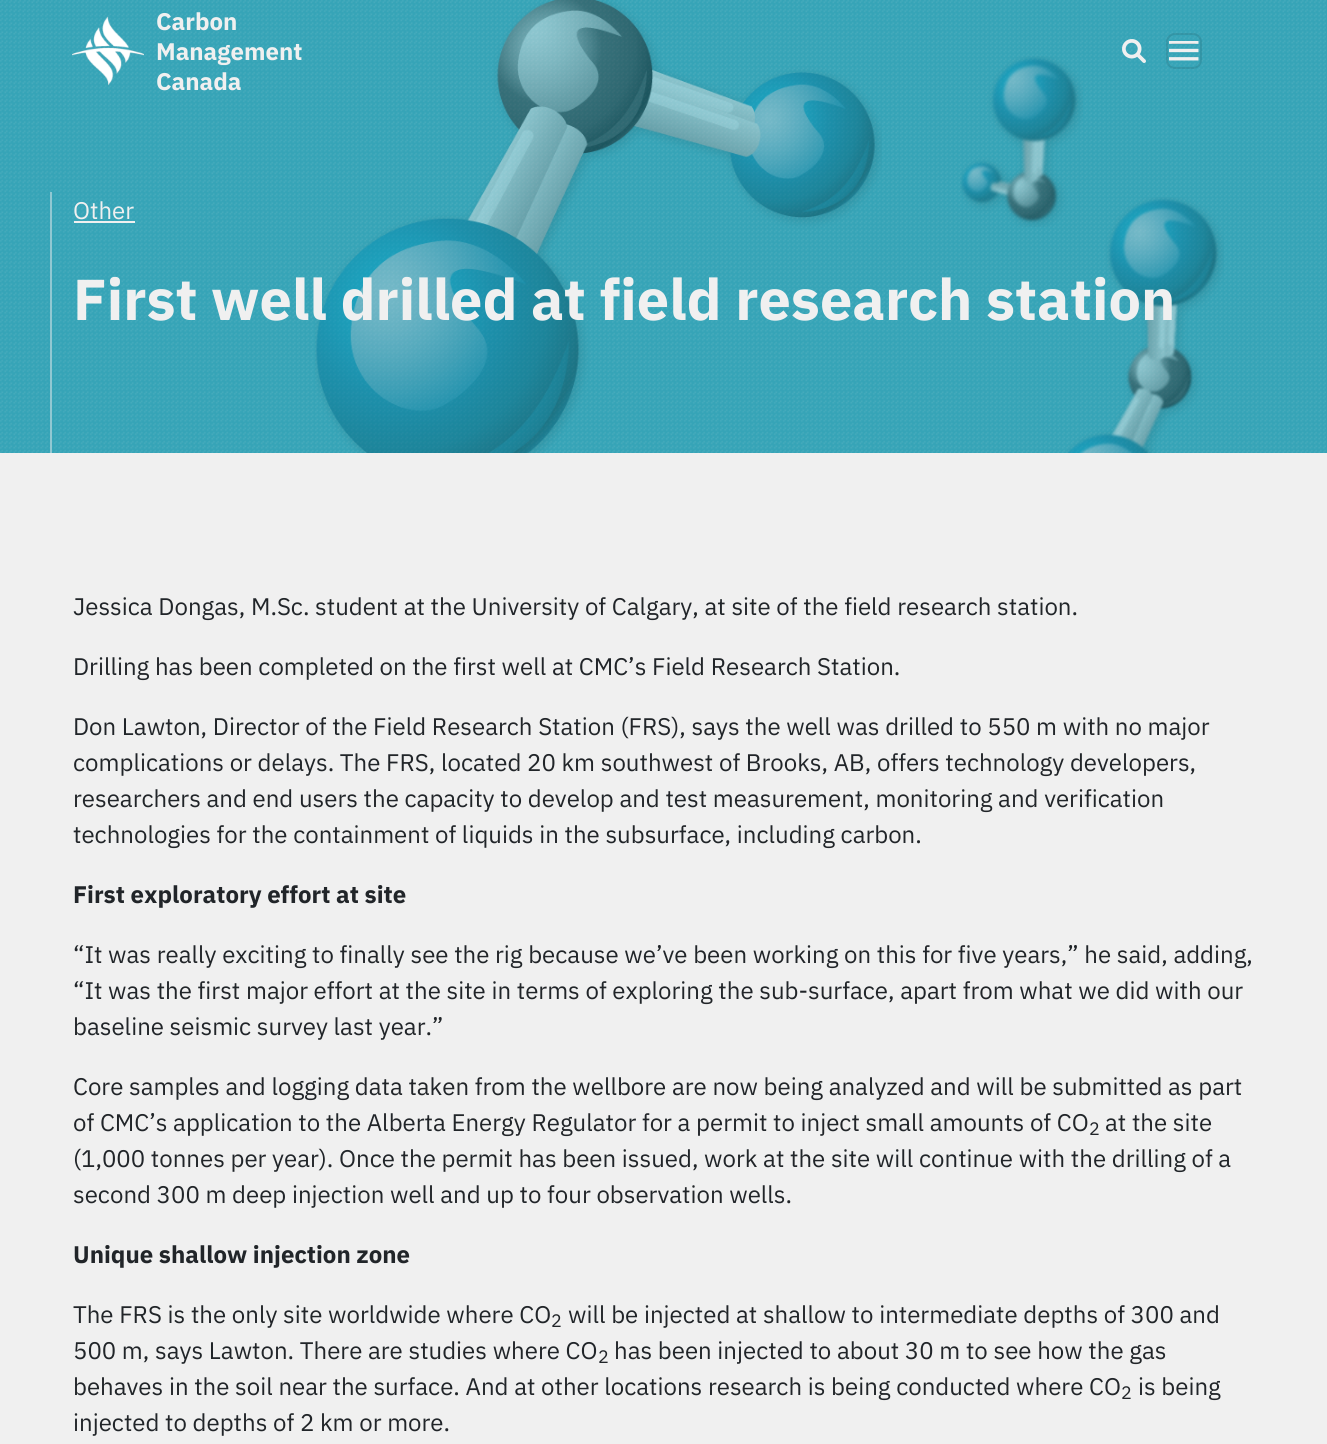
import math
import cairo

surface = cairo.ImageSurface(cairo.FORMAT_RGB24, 1327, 1444)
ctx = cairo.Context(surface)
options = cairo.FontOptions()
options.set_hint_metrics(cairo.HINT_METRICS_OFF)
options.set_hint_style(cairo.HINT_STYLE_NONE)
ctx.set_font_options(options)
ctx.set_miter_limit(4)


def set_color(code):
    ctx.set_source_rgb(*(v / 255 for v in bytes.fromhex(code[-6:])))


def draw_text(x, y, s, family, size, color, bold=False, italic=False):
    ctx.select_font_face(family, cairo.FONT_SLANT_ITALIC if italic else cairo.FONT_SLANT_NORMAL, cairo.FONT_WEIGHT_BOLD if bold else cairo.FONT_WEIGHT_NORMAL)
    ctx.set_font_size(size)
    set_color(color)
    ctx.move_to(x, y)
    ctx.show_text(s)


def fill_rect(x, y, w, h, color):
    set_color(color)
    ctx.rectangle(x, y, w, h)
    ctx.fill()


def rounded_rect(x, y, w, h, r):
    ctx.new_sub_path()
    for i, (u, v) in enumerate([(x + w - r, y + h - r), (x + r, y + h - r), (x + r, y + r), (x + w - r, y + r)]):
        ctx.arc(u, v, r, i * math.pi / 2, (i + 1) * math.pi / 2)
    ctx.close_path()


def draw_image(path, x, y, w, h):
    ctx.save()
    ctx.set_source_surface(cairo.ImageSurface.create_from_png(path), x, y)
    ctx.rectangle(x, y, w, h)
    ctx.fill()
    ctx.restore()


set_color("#f0f0f0")
ctx.paint()
fill_rect(0, 0, 1327, 453, "#36a4b7")
draw_image("assets/img5.png", 0, 0, 1326, 453)
draw_image("assets/img1.png", 72, 16, 72, 70)
draw_text(156, 30, "Carbon", "IBM Plex Sans", 24, "#f0f0f0", bold=True)
draw_text(156, 60, "Management", "IBM Plex Sans", 24, "#f0f0f0", bold=True)
draw_text(156, 90, "Canada", "IBM Plex Sans", 24, "#f0f0f0", bold=True)
draw_image("assets/img2.png", 1122, 39, 24, 24)
rounded_rect(1167, 34, 34, 34, 8)
ctx.set_source_rgba(0, 0, 0, 0.1)
ctx.stroke()
draw_image("assets/img3.png", 1171, 43, 25, 1)
draw_image("assets/img4.png", 1169, 41, 30, 20)
draw_image("assets/img6.png", 315, 0, 567, 453)
draw_image("assets/img8.png", 1067, 197, 157, 256)
draw_image("assets/img7.png", 960, 56, 123, 171)
fill_rect(50, 192, 2, 261, "#91c8d2")
draw_text(73, 219, "Other", "IBM Plex Sans", 24, "#f0f0f0")
fill_rect(74, 221, 61, 2, "#f0f0f0")
draw_text(73, 320, "First well drilled at field research station", "IBM Plex Sans", 57.6, "#f0f0f0", bold=True)
draw_text(73, 615, "Jessica Dongas, M.Sc. student at the University of Calgary, at site of the field research station.", "IBM Plex Sans", 24, "#212529")
draw_text(73, 675, "Drilling has been completed on the first well at CMC’s Field Research Station.", "IBM Plex Sans", 24, "#212529")
draw_text(73, 735, "Don Lawton, Director of the Field Research Station (FRS), says the well was drilled to 550 m with no major", "IBM Plex Sans", 24, "#212529")
draw_text(73, 771, "complications or delays. The FRS, located 20 km southwest of Brooks, AB, offers technology developers,", "IBM Plex Sans", 24, "#212529")
draw_text(73, 807, "researchers and end users the capacity to develop and test measurement, monitoring and verification", "IBM Plex Sans", 24, "#212529")
draw_text(73, 843, "technologies for the containment of liquids in the subsurface, including carbon.", "IBM Plex Sans", 24, "#212529")
draw_text(73, 903, "First exploratory effort at site", "IBM Plex Sans", 24, "#212529", bold=True)
draw_text(73, 963, "“It was really exciting to finally see the rig because we’ve been working on this for five years,” he said, adding,", "IBM Plex Sans", 24, "#212529")
draw_text(73, 999, "“It was the first major effort at the site in terms of exploring the sub-surface, apart from what we did with our", "IBM Plex Sans", 24, "#212529")
draw_text(73, 1035, "baseline seismic survey last year.”", "IBM Plex Sans", 24, "#212529")
draw_text(73, 1095, "Core samples and logging data taken from the wellbore are now being analyzed and will be submitted as part", "IBM Plex Sans", 24, "#212529")
draw_text(73, 1131, "of CMC’s application to the Alberta Energy Regulator for a permit to inject small amounts of CO", "IBM Plex Sans", 24, "#212529")
draw_text(1089, 1135, "2", "IBM Plex Sans", 18, "#212529")
draw_text(1105, 1131, "at the site", "IBM Plex Sans", 24, "#212529")
draw_text(73, 1167, "(1,000 tonnes per year). Once the permit has been issued, work at the site will continue with the drilling of a", "IBM Plex Sans", 24, "#212529")
draw_text(73, 1203, "second 300 m deep injection well and up to four observation wells.", "IBM Plex Sans", 24, "#212529")
draw_text(73, 1263, "Unique shallow injection zone", "IBM Plex Sans", 24, "#212529", bold=True)
draw_text(73, 1323, "The FRS is the only site worldwide where CO", "IBM Plex Sans", 24, "#212529")
draw_text(551, 1327, "2", "IBM Plex Sans", 18, "#212529")
draw_text(568, 1323, "will be injected at shallow to intermediate depths of 300 and", "IBM Plex Sans", 24, "#212529")
draw_text(73, 1359, "500 m, says Lawton. There are studies where CO", "IBM Plex Sans", 24, "#212529")
draw_text(598, 1363, "2", "IBM Plex Sans", 18, "#212529")
draw_text(614, 1359, "has been injected to about 30 m to see how the gas", "IBM Plex Sans", 24, "#212529")
draw_text(73, 1395, "behaves in the soil near the surface. And at other locations research is being conducted where CO", "IBM Plex Sans", 24, "#212529")
draw_text(1121, 1399, "2", "IBM Plex Sans", 18, "#212529")
draw_text(1138, 1395, "is being", "IBM Plex Sans", 24, "#212529")
draw_text(73, 1431, "injected to depths of 2 km or more.", "IBM Plex Sans", 24, "#212529")
surface.write_to_png("output.png")
